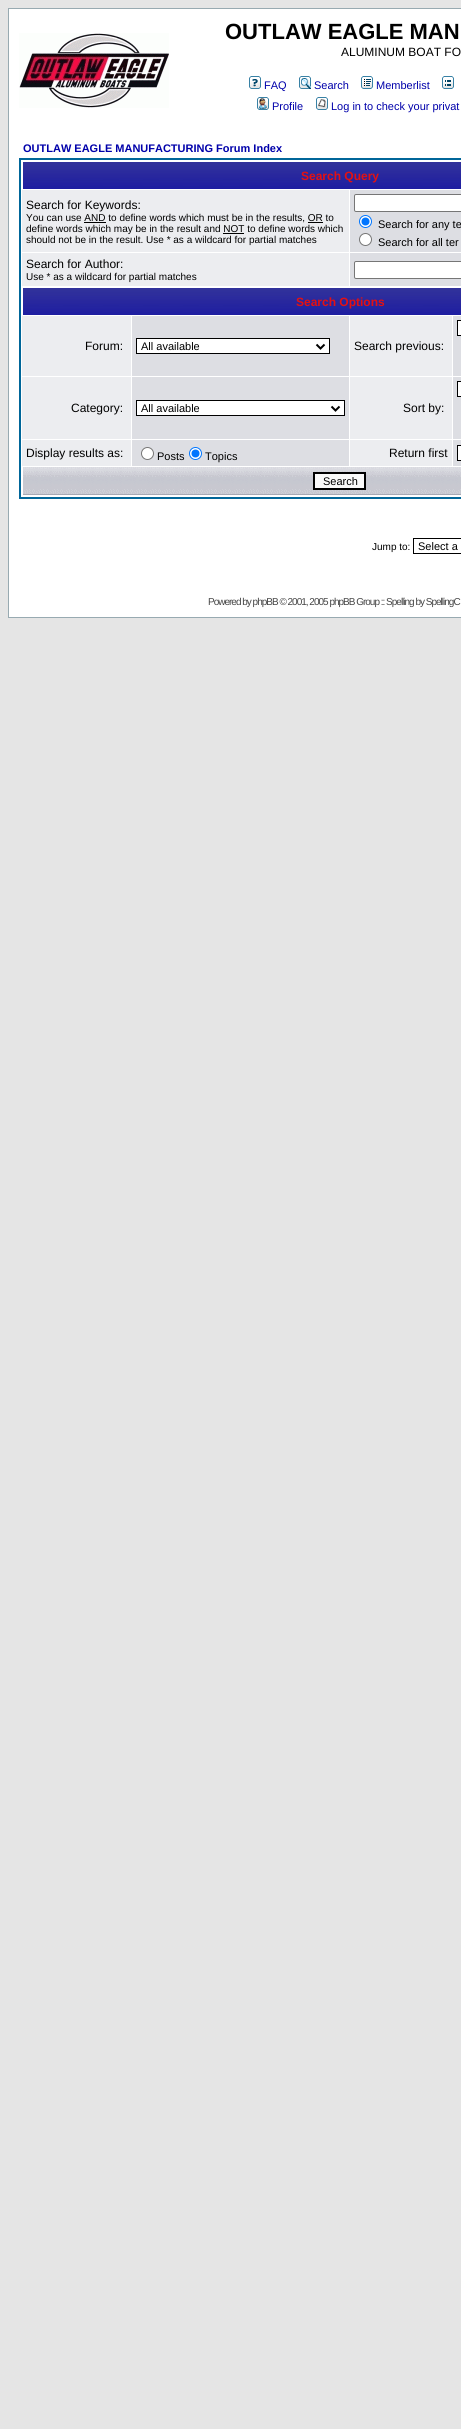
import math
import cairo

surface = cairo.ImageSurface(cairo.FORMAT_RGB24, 461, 2429)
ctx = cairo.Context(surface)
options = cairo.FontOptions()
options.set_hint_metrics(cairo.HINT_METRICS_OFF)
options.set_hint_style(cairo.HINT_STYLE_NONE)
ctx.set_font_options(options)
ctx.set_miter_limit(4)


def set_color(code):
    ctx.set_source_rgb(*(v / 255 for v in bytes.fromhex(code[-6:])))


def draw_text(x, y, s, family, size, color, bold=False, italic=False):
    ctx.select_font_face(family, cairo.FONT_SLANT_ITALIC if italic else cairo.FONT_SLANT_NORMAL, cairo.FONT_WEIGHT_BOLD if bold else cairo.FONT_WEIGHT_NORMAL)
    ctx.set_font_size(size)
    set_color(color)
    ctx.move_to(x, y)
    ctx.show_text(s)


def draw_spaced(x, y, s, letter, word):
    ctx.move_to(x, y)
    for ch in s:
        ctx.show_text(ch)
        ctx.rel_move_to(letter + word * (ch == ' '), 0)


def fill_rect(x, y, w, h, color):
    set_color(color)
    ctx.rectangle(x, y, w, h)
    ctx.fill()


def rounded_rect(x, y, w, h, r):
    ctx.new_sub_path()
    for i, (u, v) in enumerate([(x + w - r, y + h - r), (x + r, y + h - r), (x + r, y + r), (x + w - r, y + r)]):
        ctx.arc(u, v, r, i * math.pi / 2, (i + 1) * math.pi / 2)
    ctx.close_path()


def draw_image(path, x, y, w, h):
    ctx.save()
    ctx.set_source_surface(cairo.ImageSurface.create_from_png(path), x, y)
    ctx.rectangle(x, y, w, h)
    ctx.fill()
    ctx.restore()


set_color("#e5e5e5")
ctx.paint()
set_color("#ffffff")
ctx.rectangle(8.5, 8.5, 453, 609)
ctx.fill_preserve()
set_color("#98aab1")
ctx.set_line_width(1)
ctx.stroke()
draw_image("assets/img1.png", 19, 33, 150, 75)
draw_text(225, 39, "OUTLAW EAGLE MAN", "Liberation Sans", 22, "#000000", bold=True)
draw_text(341, 56, "ALUMINUM BOAT FO", "Liberation Sans", 12, "#000000")
draw_image("assets/img2.png", 249, 76, 12, 13)
draw_text(264, 89, "FAQ", "Liberation Sans", 11, "#0000aa")
draw_image("assets/img3.png", 299, 76, 12, 13)
draw_text(314, 89, "Search", "Liberation Sans", 11, "#0000aa")
draw_image("assets/img4.png", 361, 76, 12, 13)
draw_text(376, 89, "Memberlist", "Liberation Sans", 11, "#0000aa")
draw_image("assets/img5.png", 442, 76, 12, 13)
draw_image("assets/img6.png", 257, 97, 12, 13)
draw_text(272, 110, "Profile", "Liberation Sans", 11, "#0000aa")
draw_image("assets/img7.png", 316, 97, 12, 13)
draw_text(331, 110, "Log in to check your privat", "Liberation Sans", 11, "#0000aa")
draw_text(23, 152, "OUTLAW EAGLE MANUFACTURING Forum Index", "Liberation Sans", 11, "#0000aa", bold=True)
ctx.rectangle(20, 159, 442, 339)
set_color("#006699")
ctx.set_line_width(2)
ctx.stroke()
draw_image("assets/img8.png", 23, 162, 438, 27)
draw_text(301, 180, "Search Query", "Liberation Sans", 12, "#e41111", bold=True)
fill_rect(22, 190, 327, 62, "#ecedf0")
draw_text(26, 209, "Search for Keywords:", "Liberation Sans", 12, "#000000")
draw_text(26, 221, "You can use AND to define words which must be in the results, OR to", "Liberation Sans", 10, "#000000")
fill_rect(84, 222, 22, 1, "#000000")
fill_rect(308, 222, 15, 1, "#000000")
draw_text(26, 232, "define words which may be in the result and NOT to define words which", "Liberation Sans", 10, "#000000")
fill_rect(223, 233, 21, 1, "#000000")
draw_text(26, 243, "should not be in the result. Use * as a wildcard for partial matches", "Liberation Sans", 10, "#000000")
fill_rect(350, 190, 111, 62, "#dddee3")
set_color("#ffffff")
rounded_rect(354.5, 194.5, 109, 17, 1.5)
ctx.fill_preserve()
set_color("#767676")
ctx.set_line_width(1)
ctx.stroke()
set_color("#ffffff")
ctx.arc(365.5, 221.5, 6, 0, 2 * math.pi)
ctx.fill_preserve()
set_color("#0075ff")
ctx.stroke()
ctx.arc(365.5, 221.5, 4, 0, 2 * math.pi)
ctx.fill()
draw_text(378, 228, "Search for any te", "Liberation Sans", 11, "#000000")
set_color("#ffffff")
ctx.new_path()
ctx.arc(365.5, 239.5, 6, 0, 2 * math.pi)
ctx.fill_preserve()
set_color("#767676")
ctx.stroke()
draw_text(378, 246, "Search for all ter", "Liberation Sans", 11, "#000000")
fill_rect(22, 253, 327, 33, "#ecedf0")
draw_text(26, 268, "Search for Author:", "Liberation Sans", 12, "#000000")
draw_text(26, 280, "Use * as a wildcard for partial matches", "Liberation Sans", 10, "#000000")
fill_rect(350, 253, 111, 33, "#dddee3")
set_color("#ffffff")
rounded_rect(354.5, 261.5, 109, 17, 1.5)
ctx.fill_preserve()
set_color("#767676")
ctx.stroke()
draw_image("assets/img8.png", 23, 288, 438, 27)
draw_text(296, 306, "Search Options", "Liberation Sans", 12, "#e41111", bold=True)
fill_rect(22, 316, 109, 60, "#ecedf0")
draw_text(85, 350, "Forum:", "Liberation Sans", 12, "#000000")
fill_rect(132, 316, 217, 60, "#dddee3")
set_color("#ffffff")
ctx.rectangle(136.5, 338.5, 193, 15)
ctx.fill_preserve()
set_color("#000000")
ctx.stroke()
ctx.new_path()
ctx.move_to(316.5, 344.5)
ctx.line_to(320.5, 348.5)
ctx.line_to(324.5, 344.5)
ctx.set_line_width(2)
ctx.stroke()
draw_text(141, 350, "All available", "Liberation Sans", 11, "#000000")
fill_rect(350, 316, 102, 60, "#ecedf0")
draw_text(354, 350, "Search previous:", "Liberation Sans", 12, "#000000")
fill_rect(453, 316, 8, 60, "#dddee3")
set_color("#ffffff")
ctx.rectangle(457.5, 320.5, 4, 15)
ctx.fill_preserve()
set_color("#000000")
ctx.set_line_width(1)
ctx.stroke()
fill_rect(22, 377, 109, 62, "#ecedf0")
draw_text(71, 412, "Category:", "Liberation Sans", 12, "#000000")
fill_rect(132, 377, 217, 62, "#dddee3")
set_color("#ffffff")
ctx.rectangle(136.5, 400.5, 208, 15)
ctx.fill_preserve()
set_color("#000000")
ctx.stroke()
ctx.new_path()
ctx.move_to(331.5, 406.5)
ctx.line_to(335.5, 410.5)
ctx.line_to(339.5, 406.5)
ctx.set_line_width(2)
ctx.stroke()
draw_text(141, 412, "All available", "Liberation Sans", 11, "#000000")
fill_rect(350, 377, 102, 62, "#ecedf0")
draw_text(403, 412, "Sort by:", "Liberation Sans", 12, "#000000")
fill_rect(453, 377, 8, 62, "#dddee3")
set_color("#ffffff")
ctx.rectangle(457.5, 381.5, 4, 15)
ctx.fill_preserve()
set_color("#000000")
ctx.set_line_width(1)
ctx.stroke()
fill_rect(22, 440, 109, 26, "#ecedf0")
draw_text(26, 457, "Display results as:", "Liberation Sans", 12, "#000000")
fill_rect(132, 440, 217, 26, "#dddee3")
set_color("#ffffff")
ctx.new_path()
ctx.arc(147.5, 453.5, 6, 0, 2 * math.pi)
ctx.fill_preserve()
set_color("#767676")
ctx.stroke()
draw_text(157, 460, "Posts", "Liberation Sans", 11, "#000000")
set_color("#ffffff")
ctx.new_path()
ctx.arc(195.5, 453.5, 6, 0, 2 * math.pi)
ctx.fill_preserve()
set_color("#0075ff")
ctx.stroke()
ctx.arc(195.5, 453.5, 4, 0, 2 * math.pi)
ctx.fill()
draw_text(205, 460, "Topics", "Liberation Sans", 11, "#000000")
fill_rect(350, 440, 102, 26, "#ecedf0")
draw_text(389, 457, "Return first", "Liberation Sans", 12, "#000000")
fill_rect(453, 440, 8, 26, "#dddee3")
set_color("#ffffff")
ctx.rectangle(457.5, 445.5, 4, 15)
ctx.fill_preserve()
set_color("#000000")
ctx.stroke()
draw_image("assets/img9.png", 23, 467, 438, 28)
set_color("#fafafa")
ctx.rectangle(314, 473, 51, 16)
ctx.fill_preserve()
set_color("#000000")
ctx.set_line_width(2)
ctx.stroke()
draw_text(323, 485, "Search", "Liberation Sans", 11, "#000000")
draw_text(372, 550, "Jump to:", "Liberation Sans", 10, "#000000")
ctx.rectangle(413.5, 538.5, 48, 15)
ctx.set_line_width(1)
ctx.stroke()
draw_text(418, 550, "Select a", "Liberation Sans", 11, "#000000")
ctx.set_font_size(10)
set_color("#444444")
draw_spaced(208, 605, "Powered by phpBB © 2001, 2005 phpBB Group :: Spelling by SpellingC", -1, 0)
surface.write_to_png("output.png")
